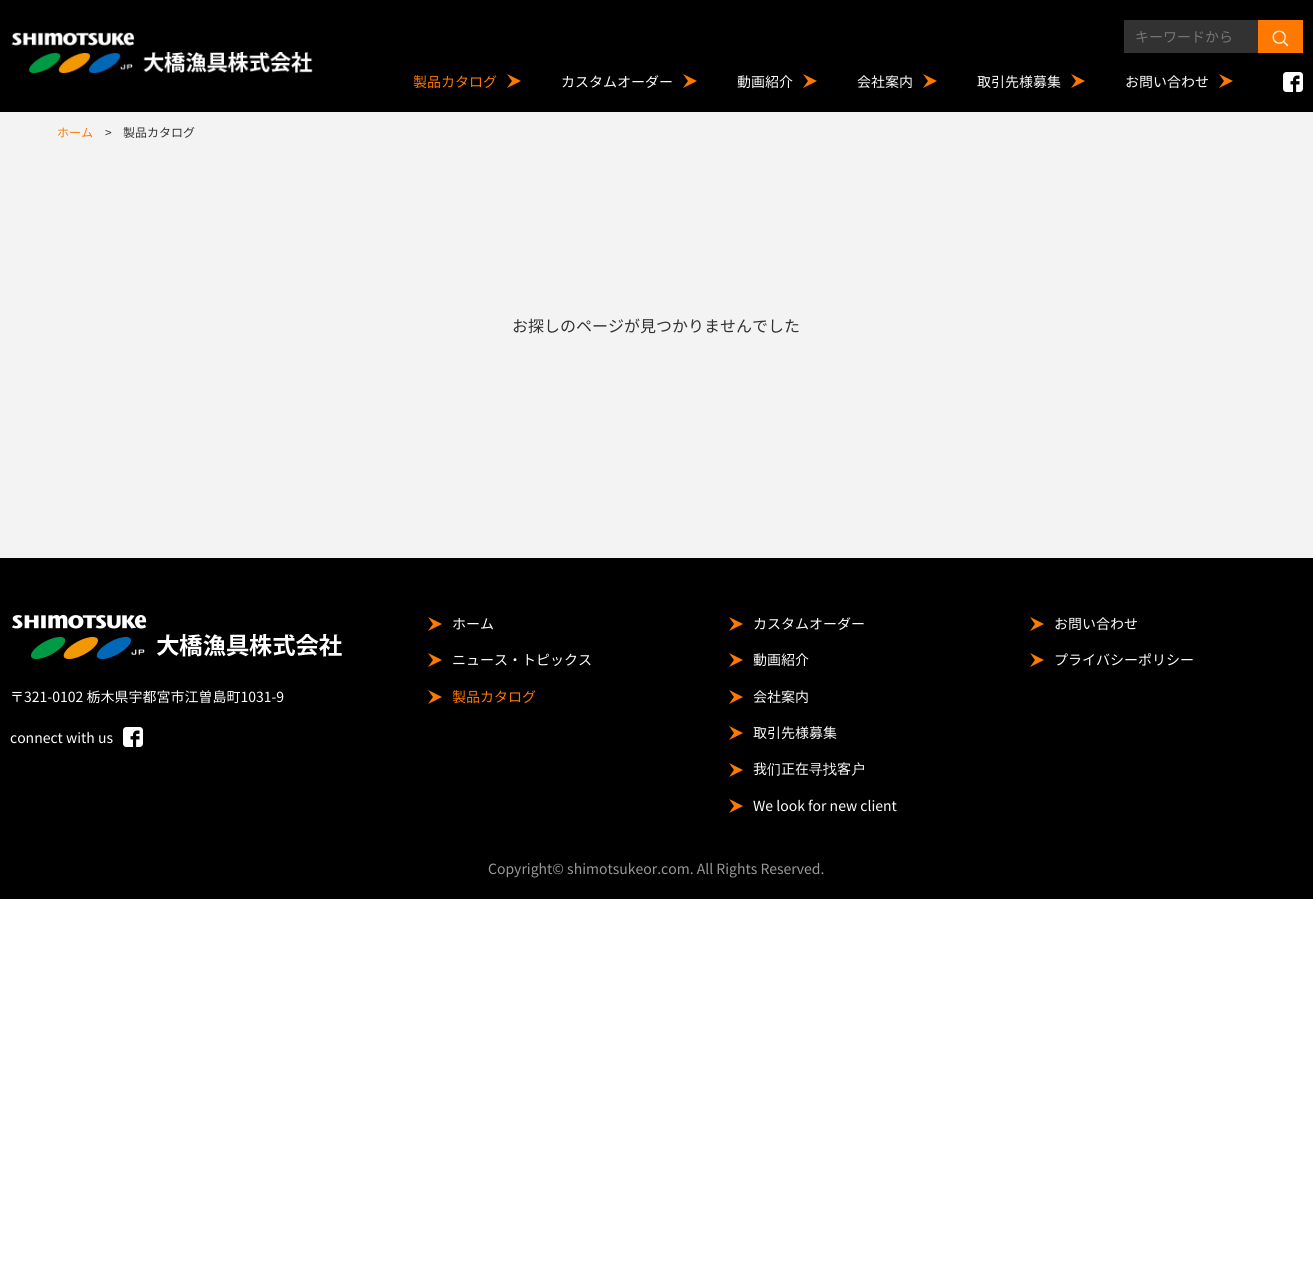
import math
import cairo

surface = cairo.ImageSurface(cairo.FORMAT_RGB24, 1313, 1270)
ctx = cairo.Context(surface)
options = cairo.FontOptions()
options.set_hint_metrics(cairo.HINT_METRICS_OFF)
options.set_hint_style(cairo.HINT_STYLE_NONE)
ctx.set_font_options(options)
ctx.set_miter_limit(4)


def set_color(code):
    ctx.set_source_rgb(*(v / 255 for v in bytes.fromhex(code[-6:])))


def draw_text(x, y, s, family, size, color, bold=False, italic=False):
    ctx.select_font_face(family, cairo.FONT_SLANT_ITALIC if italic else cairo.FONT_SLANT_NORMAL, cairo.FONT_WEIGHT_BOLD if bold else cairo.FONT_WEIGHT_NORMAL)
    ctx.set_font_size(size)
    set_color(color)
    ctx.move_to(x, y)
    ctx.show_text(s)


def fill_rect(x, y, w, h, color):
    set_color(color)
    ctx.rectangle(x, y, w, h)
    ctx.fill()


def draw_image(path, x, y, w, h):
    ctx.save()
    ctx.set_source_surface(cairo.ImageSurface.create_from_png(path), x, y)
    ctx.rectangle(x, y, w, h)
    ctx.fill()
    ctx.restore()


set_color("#ffffff")
ctx.paint()
fill_rect(0, 0, 1313, 112, "#000000")
draw_image("assets/img1.png", 11, 32, 302, 41)
fill_rect(1124, 20, 134, 33, "#323232")
draw_text(1135, 42, "キーワードから", "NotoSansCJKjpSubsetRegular", 14, "#757575")
fill_rect(1258, 20, 45, 33, "#ff7800")
draw_image("assets/img2.png", 1272, 30, 17, 17)
draw_image("assets/img3.png", 507, 74, 14, 14)
draw_text(413, 87, "製品カタログ", "NotoSansCJKjpSubsetRegular", 14, "#ff7800")
draw_image("assets/img3.png", 683, 74, 14, 14)
draw_text(561, 87, "カスタムオーダー", "NotoSansCJKjpSubsetRegular", 14, "#ffffff")
draw_image("assets/img3.png", 803, 74, 14, 14)
draw_text(737, 87, "動画紹介", "NotoSansCJKjpSubsetRegular", 14, "#ffffff")
draw_image("assets/img3.png", 923, 74, 14, 14)
draw_text(857, 87, "会社案内", "NotoSansCJKjpSubsetRegular", 14, "#ffffff")
draw_image("assets/img3.png", 1071, 74, 14, 14)
draw_text(977, 87, "取引先様募集", "NotoSansCJKjpSubsetRegular", 14, "#ffffff")
draw_image("assets/img3.png", 1219, 74, 14, 14)
draw_text(1125, 87, "お問い合わせ", "NotoSansCJKjpSubsetRegular", 14, "#ffffff")
draw_image("assets/img4.png", 1283, 72, 20, 20)
fill_rect(0, 112, 1313, 446, "#f3f3f3")
draw_text(57, 137, "ホーム", "NotoSansCJKjpSubsetRegular", 12, "#ff7800")
draw_text(105, 137, ">", "NotoSansCJKjpSubsetRegular", 12, "#323232")
draw_text(123, 137, "製品カタログ", "NotoSansCJKjpSubsetRegular", 12, "#323232")
draw_text(512, 332, "お探しのページが見つかりませんでした", "NotoSansCJKjpSubsetRegular", 16, "#323232")
fill_rect(0, 558, 1313, 341, "#000000")
draw_image("assets/img5.png", 12, 615, 330, 44)
draw_text(10, 702, "〒321-0102 栃木県宇都宮市江曽島町1031-9", "NotoSansCJKjpSubsetRegular", 14, "#ffffff")
draw_text(10, 743, "connect with us", "NotoSansCJKjpSubsetRegular", 14, "#ffffff")
draw_image("assets/img4.png", 123, 727, 20, 20)
draw_image("assets/img3.png", 428, 617, 14, 14)
draw_text(452, 629, "ホーム", "NotoSansCJKjpSubsetRegular", 14, "#ffffff")
draw_image("assets/img3.png", 428, 653, 14, 14)
draw_text(452, 665, "ニュース・トピックス", "NotoSansCJKjpSubsetRegular", 14, "#ffffff")
draw_image("assets/img3.png", 428, 690, 14, 14)
draw_text(452, 702, "製品カタログ", "NotoSansCJKjpSubsetRegular", 14, "#ff7800")
draw_image("assets/img3.png", 729, 617, 14, 14)
draw_text(753, 629, "カスタムオーダー", "NotoSansCJKjpSubsetRegular", 14, "#ffffff")
draw_image("assets/img3.png", 729, 653, 14, 14)
draw_text(753, 665, "動画紹介", "NotoSansCJKjpSubsetRegular", 14, "#ffffff")
draw_image("assets/img3.png", 729, 690, 14, 14)
draw_text(753, 702, "会社案内", "NotoSansCJKjpSubsetRegular", 14, "#ffffff")
draw_image("assets/img3.png", 729, 726, 14, 14)
draw_text(753, 738, "取引先様募集", "NotoSansCJKjpSubsetRegular", 14, "#ffffff")
draw_image("assets/img3.png", 729, 763, 14, 14)
draw_text(753, 774, "我", "NotoSansCJKjpSubsetRegular", 14, "#ffffff")
draw_text(767, 774, "们", "WenQuanYi Zen Hei Medium", 14, "#ffffff")
draw_text(781, 774, "正在", "NotoSansCJKjpSubsetRegular", 14, "#ffffff")
draw_text(809, 774, "寻找", "WenQuanYi Zen Hei Medium", 14, "#ffffff")
draw_text(837, 774, "客", "NotoSansCJKjpSubsetRegular", 14, "#ffffff")
draw_text(851, 774, "户", "WenQuanYi Zen Hei Medium", 14, "#ffffff")
draw_image("assets/img3.png", 729, 799, 14, 14)
draw_text(753, 811, "We look for new client", "NotoSansCJKjpSubsetRegular", 14, "#ffffff")
draw_image("assets/img3.png", 1030, 617, 14, 14)
draw_text(1054, 629, "お問い合わせ", "NotoSansCJKjpSubsetRegular", 14, "#ffffff")
draw_image("assets/img3.png", 1030, 653, 14, 14)
draw_text(1054, 665, "プライバシーポリシー", "NotoSansCJKjpSubsetRegular", 14, "#ffffff")
draw_text(488, 874, "Copyright© shimotsukeor.com. All Rights Reserved.", "NotoSansCJKjpSubsetRegular", 14, "#999999")
surface.write_to_png("output.png")
